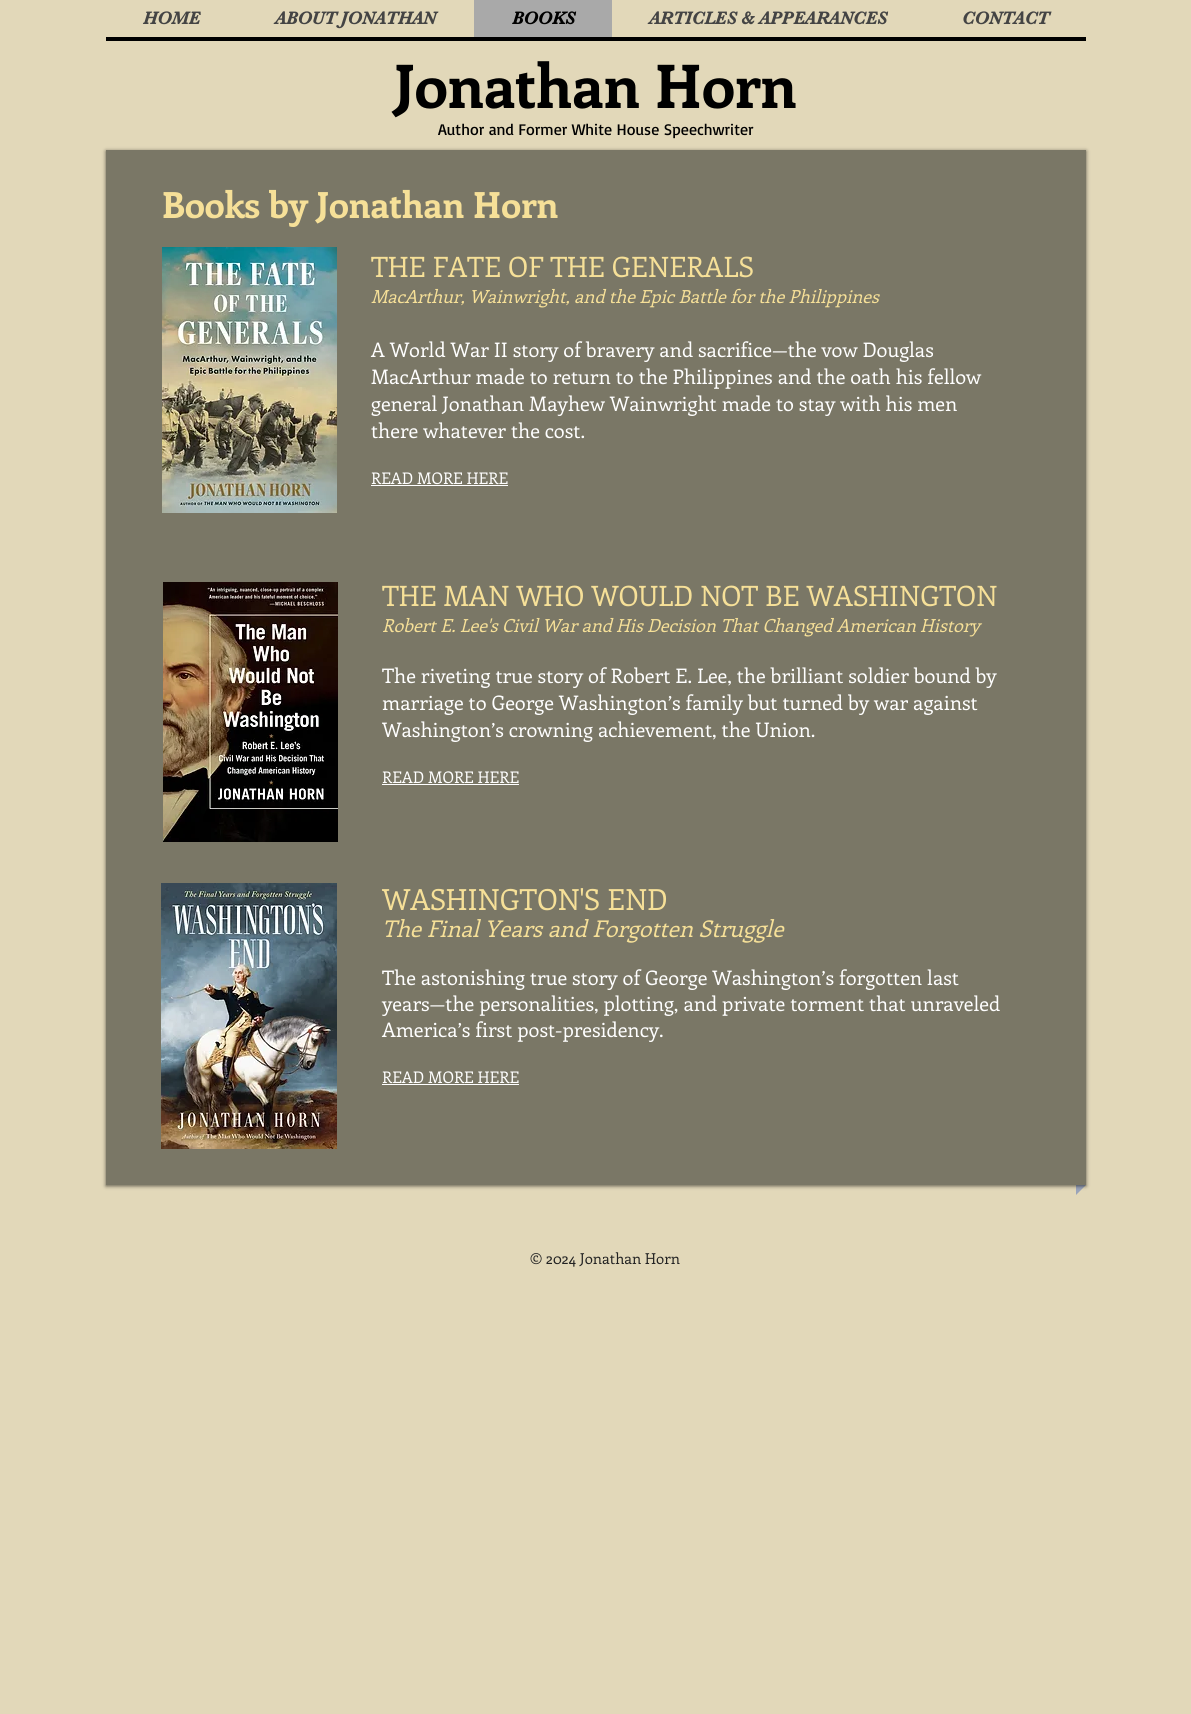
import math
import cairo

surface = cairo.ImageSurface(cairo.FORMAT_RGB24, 1191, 1714)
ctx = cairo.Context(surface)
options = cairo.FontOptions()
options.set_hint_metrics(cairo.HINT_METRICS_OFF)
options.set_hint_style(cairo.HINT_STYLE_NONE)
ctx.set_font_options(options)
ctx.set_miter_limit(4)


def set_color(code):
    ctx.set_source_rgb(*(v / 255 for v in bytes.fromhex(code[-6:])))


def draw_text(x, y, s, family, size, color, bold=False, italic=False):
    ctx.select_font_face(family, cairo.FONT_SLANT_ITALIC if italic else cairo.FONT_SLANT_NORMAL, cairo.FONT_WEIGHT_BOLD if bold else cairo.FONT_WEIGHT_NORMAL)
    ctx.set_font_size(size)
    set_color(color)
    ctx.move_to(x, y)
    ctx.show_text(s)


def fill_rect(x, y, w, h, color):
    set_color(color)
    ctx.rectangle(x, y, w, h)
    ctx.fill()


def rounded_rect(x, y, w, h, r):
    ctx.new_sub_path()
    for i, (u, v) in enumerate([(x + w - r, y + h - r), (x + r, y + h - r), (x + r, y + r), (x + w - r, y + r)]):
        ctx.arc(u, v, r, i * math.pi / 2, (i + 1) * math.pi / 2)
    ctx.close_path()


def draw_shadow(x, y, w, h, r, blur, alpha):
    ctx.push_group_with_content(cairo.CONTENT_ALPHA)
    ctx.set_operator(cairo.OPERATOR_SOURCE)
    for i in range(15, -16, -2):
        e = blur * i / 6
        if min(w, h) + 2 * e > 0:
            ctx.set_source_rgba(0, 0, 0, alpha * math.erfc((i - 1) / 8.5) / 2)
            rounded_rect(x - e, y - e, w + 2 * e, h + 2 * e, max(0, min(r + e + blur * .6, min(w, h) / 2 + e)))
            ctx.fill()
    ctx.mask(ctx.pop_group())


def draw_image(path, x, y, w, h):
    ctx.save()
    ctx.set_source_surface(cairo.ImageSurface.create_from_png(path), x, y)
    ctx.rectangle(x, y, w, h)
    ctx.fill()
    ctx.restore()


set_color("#e2d8b9")
ctx.paint()
fill_rect(106, 37, 980, 4, "#000000")
draw_text(143, 24, "HOME", "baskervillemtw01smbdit", 18, "#444444", bold=True)
draw_text(275, 24, "ABOUT JONATHAN", "baskervillemtw01smbdit", 18, "#444444", bold=True)
fill_rect(474, 0, 138, 37, "#a9a9a9")
draw_text(512, 24, "BOOKS", "baskervillemtw01smbdit", 18, "#000000", bold=True)
draw_text(649, 24, "ARTICLES & APPEARANCES", "baskervillemtw01smbdit", 18, "#444444", bold=True)
draw_text(962, 24, "CONTACT", "baskervillemtw01smbdit", 18, "#444444", bold=True)
draw_text(394, 108, "Jonathan Horn", "Enriqueta", 60, "#000000", bold=True)
draw_text(438, 135, "Author and Former White House Speechwriter", "Basic", 16, "#000000")
set_color("#9aa4ba")
ctx.new_path()
ctx.move_to(1076, 1185)
ctx.line_to(1086, 1185)
ctx.line_to(1076, 1195)
ctx.close_path()
ctx.fill()
set_color("#000000")
draw_shadow(106, 151, 980, 1035, 0, 2, 0.6)
fill_rect(106, 150, 980, 1035, "#7a7766")
draw_text(162, 218, "Books by Jonathan Horn", "Enriqueta", 36, "#f6e098", bold=True)
draw_image("assets/img1.png", 162, 247, 175, 266)
draw_text(371, 277, "THE FATE OF THE GENERALS", "Enriqueta", 28, "#f6e098")
draw_text(371, 303, "MacArthur, Wainwright, and the Epic Battle for the Philippines", "Enriqueta", 18, "#f6e098", italic=True)
draw_text(371, 357, "A World War II story of bravery and sacrifice—the vow Douglas", "Enriqueta", 20, "#ffffff")
draw_text(371, 384, "MacArthur made to return to the Philippines and the oath his fellow", "Enriqueta", 20, "#ffffff")
draw_text(371, 411, "general Jonathan Mayhew Wainwright made to stay with his men", "Enriqueta", 20, "#ffffff")
draw_text(371, 438, "there whatever the cost.", "Enriqueta", 20, "#ffffff")
draw_text(371, 484, "READ MORE HERE", "Enriqueta", 16, "#ffffff")
fill_rect(371, 485, 137, 1, "#ffffff")
draw_image("assets/img2.png", 163, 582, 175, 260)
draw_text(382, 606, "THE MAN WHO WOULD NOT BE WASHINGTON", "Enriqueta", 28, "#f6e098")
draw_text(382, 632, "Robert E. Lee's Civil War and His Decision That Changed American History", "Enriqueta", 18, "#f6e098", italic=True)
draw_text(382, 683, "The riveting true story of Robert E. Lee, the brilliant soldier bound by", "Enriqueta", 20, "#ffffff")
draw_text(382, 710, "marriage to George Washington’s family but turned by war against", "Enriqueta", 20, "#ffffff")
draw_text(382, 737, "Washington’s crowning achievement, the Union.", "Enriqueta", 20, "#ffffff")
draw_text(382, 783, "READ MORE HERE", "Enriqueta", 16, "#ffffff")
fill_rect(382, 784, 137, 1, "#ffffff")
draw_image("assets/img3.png", 161, 883, 176, 266)
draw_text(382, 910, "WASHINGTON'S END", "Enriqueta", 29, "#f6e098")
draw_text(382, 937, "The Final Years and Forgotten Struggle", "Enriqueta", 23, "#f6e098", italic=True)
draw_text(382, 985, "The astonishing true story of George Washington’s forgotten last", "Enriqueta", 20, "#ffffff")
draw_text(382, 1011, "years—the personalities, plotting, and private torment that unraveled", "Enriqueta", 20, "#ffffff")
draw_text(382, 1037, "America’s first post-presidency.", "Enriqueta", 20, "#ffffff")
draw_text(382, 1083, "READ MORE HERE", "Enriqueta", 16, "#ffffff")
fill_rect(382, 1084, 137, 1, "#ffffff")
draw_text(530, 1264, "© 2024 Jonathan Horn", "Enriqueta", 15, "#222222")
surface.write_to_png("output.png")
